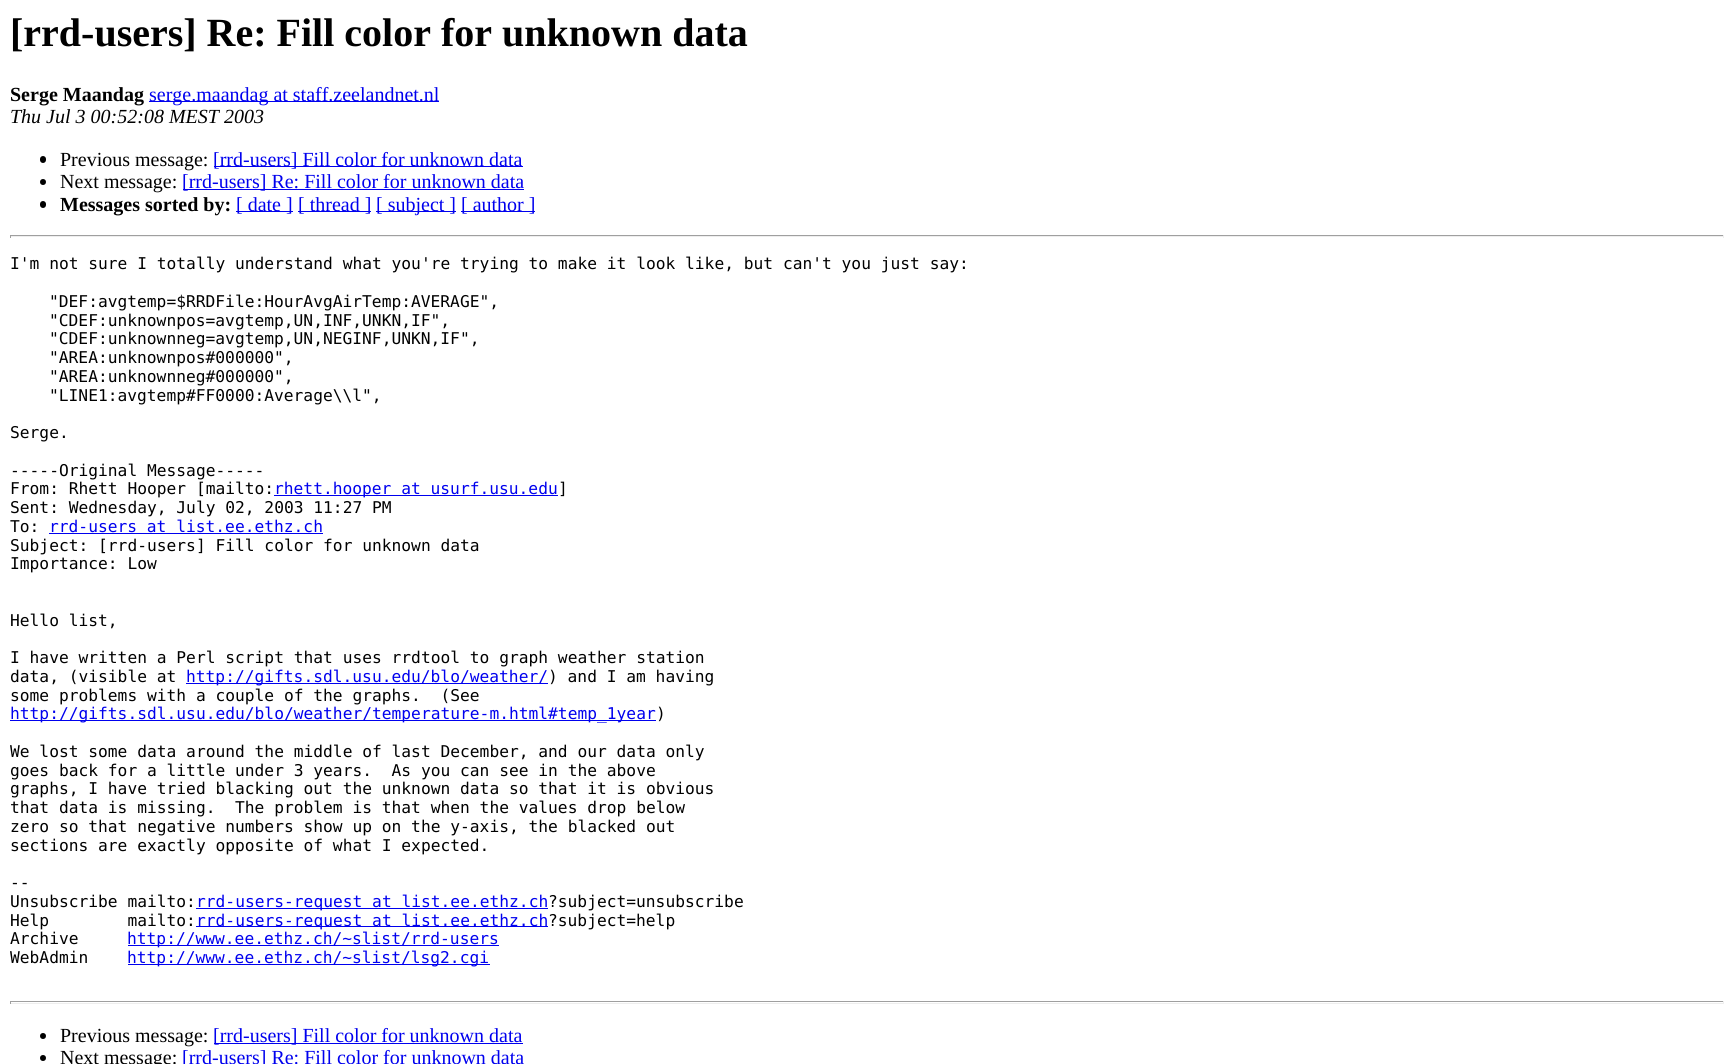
import math
import cairo

surface = cairo.ImageSurface(cairo.FORMAT_RGB24, 1733, 1064)
ctx = cairo.Context(surface)
options = cairo.FontOptions()
options.set_hint_metrics(cairo.HINT_METRICS_OFF)
options.set_hint_style(cairo.HINT_STYLE_NONE)
ctx.set_font_options(options)
ctx.set_miter_limit(4)


def set_color(code):
    ctx.set_source_rgb(*(v / 255 for v in bytes.fromhex(code[-6:])))


def draw_text(x, y, s, family, size, color, bold=False, italic=False):
    ctx.select_font_face(family, cairo.FONT_SLANT_ITALIC if italic else cairo.FONT_SLANT_NORMAL, cairo.FONT_WEIGHT_BOLD if bold else cairo.FONT_WEIGHT_NORMAL)
    ctx.set_font_size(size)
    set_color(color)
    ctx.move_to(x, y)
    ctx.show_text(s)


def fill_rect(x, y, w, h, color):
    set_color(color)
    ctx.rectangle(x, y, w, h)
    ctx.fill()


def rounded_rect(x, y, w, h, r):
    ctx.new_sub_path()
    for i, (u, v) in enumerate([(x + w - r, y + h - r), (x + r, y + h - r), (x + r, y + r), (x + w - r, y + r)]):
        ctx.arc(u, v, r, i * math.pi / 2, (i + 1) * math.pi / 2)
    ctx.close_path()


set_color("#ffffff")
ctx.paint()
draw_text(10, 46, "[rrd-users] Re: Fill color for unknown data", "Liberation Serif", 40, "#000000", bold=True)
draw_text(10, 101, "Serge Maandag", "Liberation Serif", 20, "#000000", bold=True)
fill_rect(149, 101, 290, 1, "#0000ee")
draw_text(149, 101, "serge.maandag at staff.zeelandnet.nl", "Liberation Serif", 20, "#0000ee")
draw_text(10, 123, "Thu Jul 3 00:52:08 MEST 2003", "Liberation Serif", 20, "#000000", italic=True)
rounded_rect(40, 156, 6, 7, 3)
ctx.fill()
draw_text(60, 166, "Previous message:", "Liberation Serif", 20, "#000000")
fill_rect(214, 166, 309, 1, "#0000ee")
draw_text(213, 166, "[rrd-users] Fill color for unknown data", "Liberation Serif", 20, "#0000ee")
set_color("#000000")
ctx.new_path()
ctx.arc(43, 182, 3, 0, 2 * math.pi)
ctx.fill()
draw_text(60, 188, "Next message:", "Liberation Serif", 20, "#000000")
fill_rect(183, 189, 341, 1, "#0000ee")
draw_text(182, 188, "[rrd-users] Re: Fill color for unknown data", "Liberation Serif", 20, "#0000ee")
set_color("#000000")
rounded_rect(40, 201, 6, 7, 3)
ctx.fill()
draw_text(60, 211, "Messages sorted by:", "Liberation Serif", 20, "#000000", bold=True)
fill_rect(236, 211, 57, 1, "#0000ee")
draw_text(236, 211, "[ date ]", "Liberation Serif", 20, "#0000ee")
fill_rect(298, 211, 73, 1, "#0000ee")
draw_text(298, 211, "[ thread ]", "Liberation Serif", 20, "#0000ee")
fill_rect(376, 211, 80, 1, "#0000ee")
draw_text(376, 211, "[ subject ]", "Liberation Serif", 20, "#0000ee")
fill_rect(461, 211, 74, 1, "#0000ee")
draw_text(461, 211, "[ author ]", "Liberation Serif", 20, "#0000ee")
fill_rect(10, 235, 1714, 1, "#9f9f9f")
fill_rect(1723, 235, 1, 3, "#eeeeee")
fill_rect(10, 236, 1714, 1, "#eeeeee")
fill_rect(10, 235, 1, 3, "#9f9f9f")
draw_text(10, 269, "I'm not sure I totally understand what you're trying to make it look like, but can't you just say:", "DejaVu Sans Mono", 16.25, "#000000")
draw_text(49, 307, "\"DEF:avgtemp=$RRDFile:HourAvgAirTemp:AVERAGE\",", "DejaVu Sans Mono", 16.25, "#000000")
draw_text(49, 326, "\"CDEF:unknownpos=avgtemp,UN,INF,UNKN,IF\",", "DejaVu Sans Mono", 16.25, "#000000")
draw_text(49, 344, "\"CDEF:unknownneg=avgtemp,UN,NEGINF,UNKN,IF\",", "DejaVu Sans Mono", 16.25, "#000000")
draw_text(49, 363, "\"AREA:unknownpos#000000\",", "DejaVu Sans Mono", 16.25, "#000000")
draw_text(49, 382, "\"AREA:unknownneg#000000\",", "DejaVu Sans Mono", 16.25, "#000000")
draw_text(49, 401, "\"LINE1:avgtemp#FF0000:Average\\\\l\",", "DejaVu Sans Mono", 16.25, "#000000")
draw_text(10, 438, "Serge.", "DejaVu Sans Mono", 16.25, "#000000")
draw_text(10, 476, "-----Original Message-----", "DejaVu Sans Mono", 16.25, "#000000")
draw_text(10, 494, "From: Rhett Hooper [mailto:", "DejaVu Sans Mono", 16.25, "#000000")
fill_rect(274, 495, 284, 1, "#0000ee")
draw_text(274, 494, "rhett.hooper at usurf.usu.edu", "DejaVu Sans Mono", 16.25, "#0000ee")
draw_text(558, 494, "]", "DejaVu Sans Mono", 16.25, "#000000")
draw_text(10, 513, "Sent: Wednesday, July 02, 2003 11:27 PM", "DejaVu Sans Mono", 16.25, "#000000")
draw_text(10, 532, "To:", "DejaVu Sans Mono", 16.25, "#000000")
draw_text(49, 532, "rrd-users at list.ee.ethz.ch", "DejaVu Sans Mono", 16.25, "#0000ee")
fill_rect(49, 533, 274, 1, "#0000ee")
draw_text(10, 551, "Subject: [rrd-users] Fill color for unknown data", "DejaVu Sans Mono", 16.25, "#000000")
draw_text(10, 569, "Importance: Low", "DejaVu Sans Mono", 16.25, "#000000")
draw_text(10, 626, "Hello list,", "DejaVu Sans Mono", 16.25, "#000000")
draw_text(10, 663, "I have written a Perl script that uses rrdtool to graph weather station", "DejaVu Sans Mono", 16.25, "#000000")
draw_text(10, 682, "data, (visible at", "DejaVu Sans Mono", 16.25, "#000000")
fill_rect(186, 683, 362, 1, "#0000ee")
draw_text(186, 682, "http://gifts.sdl.usu.edu/blo/weather/", "DejaVu Sans Mono", 16.25, "#0000ee")
draw_text(548, 682, ") and I am having", "DejaVu Sans Mono", 16.25, "#000000")
draw_text(10, 701, "some problems with a couple of the graphs.  (See", "DejaVu Sans Mono", 16.25, "#000000")
fill_rect(10, 720, 646, 1, "#0000ee")
draw_text(10, 719, "http://gifts.sdl.usu.edu/blo/weather/temperature-m.html#temp_1year", "DejaVu Sans Mono", 16.25, "#0000ee")
draw_text(656, 719, ")", "DejaVu Sans Mono", 16.25, "#000000")
draw_text(10, 757, "We lost some data around the middle of last December, and our data only", "DejaVu Sans Mono", 16.25, "#000000")
draw_text(10, 776, "goes back for a little under 3 years.  As you can see in the above", "DejaVu Sans Mono", 16.25, "#000000")
draw_text(10, 794, "graphs, I have tried blacking out the unknown data so that it is obvious", "DejaVu Sans Mono", 16.25, "#000000")
draw_text(10, 813, "that data is missing.  The problem is that when the values drop below", "DejaVu Sans Mono", 16.25, "#000000")
draw_text(10, 832, "zero so that negative numbers show up on the y-axis, the blacked out", "DejaVu Sans Mono", 16.25, "#000000")
draw_text(10, 851, "sections are exactly opposite of what I expected.", "DejaVu Sans Mono", 16.25, "#000000")
draw_text(10, 888, "--", "DejaVu Sans Mono", 16.25, "#000000")
draw_text(10, 907, "Unsubscribe mailto:", "DejaVu Sans Mono", 16.25, "#000000")
fill_rect(196, 908, 352, 1, "#0000ee")
draw_text(196, 907, "rrd-users-request at list.ee.ethz.ch", "DejaVu Sans Mono", 16.25, "#0000ee")
draw_text(548, 907, "?subject=unsubscribe", "DejaVu Sans Mono", 16.25, "#000000")
draw_text(10, 926, "Help        mailto:", "DejaVu Sans Mono", 16.25, "#000000")
fill_rect(196, 926, 352, 1, "#0000ee")
draw_text(196, 926, "rrd-users-request at list.ee.ethz.ch", "DejaVu Sans Mono", 16.25, "#0000ee")
draw_text(548, 926, "?subject=help", "DejaVu Sans Mono", 16.25, "#000000")
draw_text(10, 944, "Archive", "DejaVu Sans Mono", 16.25, "#000000")
fill_rect(128, 945, 371, 1, "#0000ee")
draw_text(127, 944, "http://www.ee.ethz.ch/~slist/rrd-users", "DejaVu Sans Mono", 16.25, "#0000ee")
draw_text(10, 963, "WebAdmin", "DejaVu Sans Mono", 16.25, "#000000")
fill_rect(128, 964, 362, 1, "#0000ee")
draw_text(127, 963, "http://www.ee.ethz.ch/~slist/lsg2.cgi", "DejaVu Sans Mono", 16.25, "#0000ee")
fill_rect(10, 1001, 1714, 1, "#9f9f9f")
fill_rect(1723, 1001, 1, 3, "#eeeeee")
fill_rect(10, 1003, 1714, 1, "#eeeeee")
fill_rect(10, 1001, 1, 3, "#9f9f9f")
set_color("#000000")
ctx.new_path()
ctx.arc(43, 1036, 3, 0, 2 * math.pi)
ctx.fill()
draw_text(60, 1042, "Previous message:", "Liberation Serif", 20, "#000000")
fill_rect(214, 1043, 309, 1, "#0000ee")
draw_text(213, 1042, "[rrd-users] Fill color for unknown data", "Liberation Serif", 20, "#0000ee")
set_color("#000000")
ctx.new_path()
ctx.arc(43, 1058, 3, 0, 2 * math.pi)
ctx.fill()
draw_text(60, 1064, "Next message:", "Liberation Serif", 20, "#000000")
draw_text(182, 1064, "[rrd-users] Re: Fill color for unknown data", "Liberation Serif", 20, "#0000ee")
surface.write_to_png("output.png")
